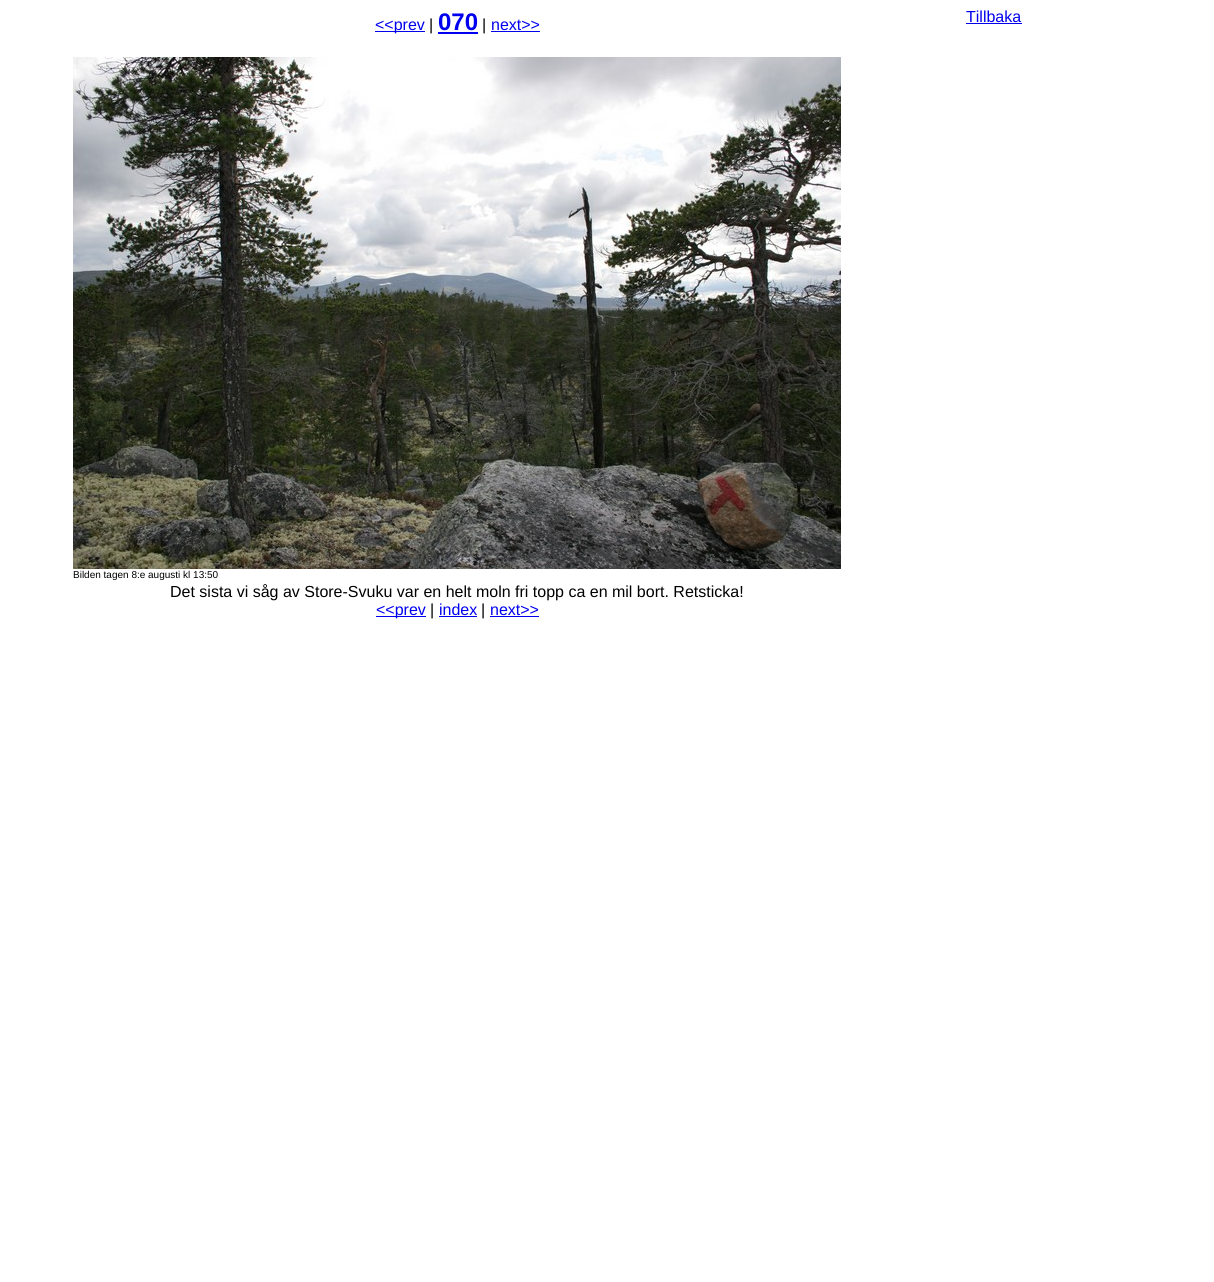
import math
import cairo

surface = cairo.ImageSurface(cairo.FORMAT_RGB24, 1214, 1282)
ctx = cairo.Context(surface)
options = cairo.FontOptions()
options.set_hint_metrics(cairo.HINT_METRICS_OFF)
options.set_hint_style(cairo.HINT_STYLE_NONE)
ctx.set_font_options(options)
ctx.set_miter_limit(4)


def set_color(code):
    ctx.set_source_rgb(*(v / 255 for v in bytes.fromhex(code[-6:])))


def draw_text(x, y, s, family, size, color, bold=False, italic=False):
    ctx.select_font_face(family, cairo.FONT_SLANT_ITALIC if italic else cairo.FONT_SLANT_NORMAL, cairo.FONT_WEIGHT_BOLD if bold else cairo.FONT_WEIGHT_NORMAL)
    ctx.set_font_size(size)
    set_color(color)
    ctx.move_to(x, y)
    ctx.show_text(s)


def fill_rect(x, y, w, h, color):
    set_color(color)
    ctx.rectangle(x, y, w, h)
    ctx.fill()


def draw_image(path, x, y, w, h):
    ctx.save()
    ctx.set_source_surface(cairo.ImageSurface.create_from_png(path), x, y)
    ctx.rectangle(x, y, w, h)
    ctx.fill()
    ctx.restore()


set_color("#ffffff")
ctx.paint()
fill_rect(375, 31, 50, 1, "#0000ee")
draw_text(375, 30, "<<prev", "Liberation Sans", 16, "#0000ee")
draw_text(429, 30, "|", "Liberation Sans", 16, "#000000")
draw_text(438, 30, "070", "Liberation Sans", 24, "#0000ee", bold=True)
fill_rect(438, 32, 40, 2, "#0000ee")
draw_text(482, 30, "|", "Liberation Sans", 16, "#000000")
draw_text(491, 30, "next>>", "Liberation Sans", 16, "#0000ee")
fill_rect(491, 31, 49, 1, "#0000ee")
draw_image("assets/img1.png", 73, 57, 768, 512)
draw_text(73, 578, "Bilden tagen 8:e augusti kl 13:50", "Liberation Sans", 10, "#000000")
draw_text(170, 597, "Det sista vi såg av Store-Svuku var en helt moln fri topp ca en mil bort. Retsticka!", "Liberation Sans", 16, "#000000")
fill_rect(376, 616, 50, 1, "#0000ee")
draw_text(376, 615, "<<prev", "Liberation Sans", 16, "#0000ee")
draw_text(430, 615, "|", "Liberation Sans", 16, "#000000")
draw_text(439, 615, "index", "Liberation Sans", 16, "#0000ee")
fill_rect(439, 616, 38, 1, "#0000ee")
draw_text(481, 615, "|", "Liberation Sans", 16, "#000000")
draw_text(490, 615, "next>>", "Liberation Sans", 16, "#0000ee")
fill_rect(490, 616, 49, 1, "#0000ee")
draw_text(966, 22, "Tillbaka", "Liberation Sans", 16, "#0000ee")
fill_rect(966, 23, 56, 1, "#0000ee")
surface.write_to_png("output.png")
